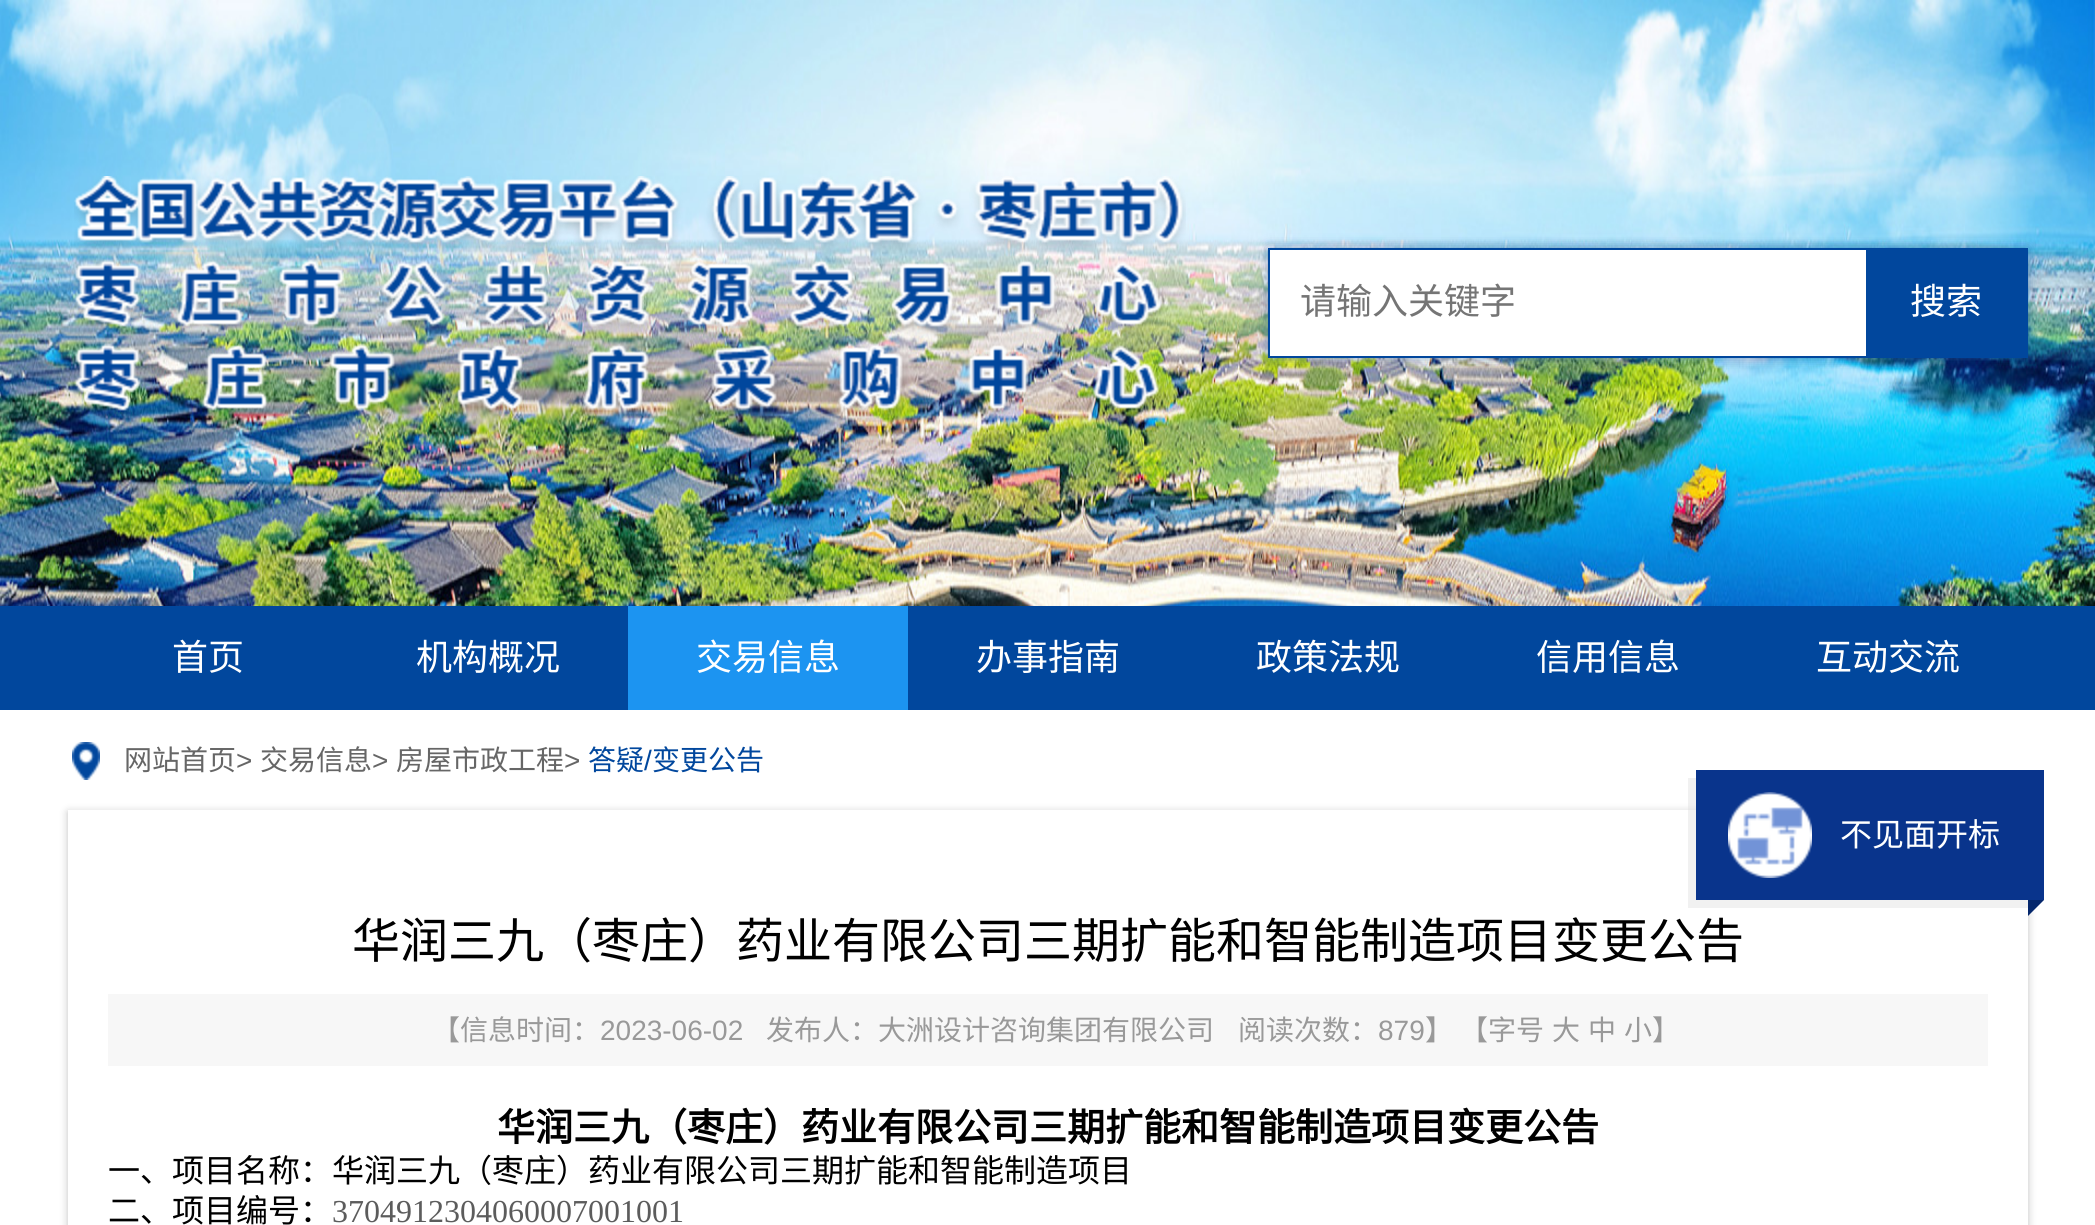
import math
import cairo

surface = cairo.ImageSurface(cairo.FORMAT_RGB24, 2095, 1225)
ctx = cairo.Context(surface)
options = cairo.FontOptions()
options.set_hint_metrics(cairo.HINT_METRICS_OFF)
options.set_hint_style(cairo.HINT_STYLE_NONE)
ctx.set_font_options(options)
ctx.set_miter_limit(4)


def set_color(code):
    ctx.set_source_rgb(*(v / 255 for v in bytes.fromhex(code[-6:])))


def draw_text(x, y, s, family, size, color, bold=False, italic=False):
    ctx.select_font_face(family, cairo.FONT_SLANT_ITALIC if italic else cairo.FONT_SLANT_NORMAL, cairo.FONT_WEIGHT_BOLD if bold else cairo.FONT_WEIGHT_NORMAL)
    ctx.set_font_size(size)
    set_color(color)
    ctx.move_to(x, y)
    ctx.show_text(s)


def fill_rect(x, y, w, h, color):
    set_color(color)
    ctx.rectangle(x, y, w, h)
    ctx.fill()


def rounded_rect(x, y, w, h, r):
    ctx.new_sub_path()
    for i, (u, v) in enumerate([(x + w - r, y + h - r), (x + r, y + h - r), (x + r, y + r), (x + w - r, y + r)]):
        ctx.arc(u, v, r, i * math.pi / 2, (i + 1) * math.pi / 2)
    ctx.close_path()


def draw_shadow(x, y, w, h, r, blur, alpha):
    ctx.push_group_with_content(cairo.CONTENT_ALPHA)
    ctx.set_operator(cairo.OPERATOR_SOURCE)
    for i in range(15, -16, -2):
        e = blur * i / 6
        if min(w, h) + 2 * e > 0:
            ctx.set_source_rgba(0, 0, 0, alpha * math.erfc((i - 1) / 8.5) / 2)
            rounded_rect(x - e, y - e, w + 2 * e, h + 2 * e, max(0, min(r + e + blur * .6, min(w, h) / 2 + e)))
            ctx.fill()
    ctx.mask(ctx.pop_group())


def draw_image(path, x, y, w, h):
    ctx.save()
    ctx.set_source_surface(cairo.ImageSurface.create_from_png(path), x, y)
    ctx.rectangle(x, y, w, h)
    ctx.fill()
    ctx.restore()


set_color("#ffffff")
ctx.paint()
draw_image("assets/img1.png", 0, 0, 2095, 606)
draw_image("assets/img2.png", 74, 176, 1112, 243)
set_color("#01479d")
draw_shadow(1268, 248, 760, 110, 0, 6, 0.45)
fill_rect(1270, 250, 596, 106, "#ffffff")
ctx.rectangle(1269, 249, 758, 108)
set_color("#01479d")
ctx.stroke()
draw_text(1300, 314, "请输入关键字", "Noto Sans CJK SC", 36, "#757575")
fill_rect(1866, 250, 160, 106, "#01479d")
draw_text(1910, 314, "搜索", "Noto Sans CJK SC", 36, "#ffffff")
fill_rect(0, 606, 2095, 104, "#01479d")
draw_text(172, 670, "首页", "Noto Sans CJK SC", 36, "#ffffff")
draw_text(416, 670, "机构概况", "Noto Sans CJK SC", 36, "#ffffff")
fill_rect(628, 606, 280, 104, "#1c94f1")
draw_text(696, 670, "交易信息", "Noto Sans CJK SC", 36, "#ffffff")
draw_text(976, 670, "办事指南", "Noto Sans CJK SC", 36, "#ffffff")
draw_text(1256, 670, "政策法规", "Noto Sans CJK SC", 36, "#ffffff")
draw_text(1536, 670, "信用信息", "Noto Sans CJK SC", 36, "#ffffff")
draw_text(1816, 670, "互动交流", "Noto Sans CJK SC", 36, "#ffffff")
draw_image("assets/img3.png", 72, 742, 28, 38)
draw_text(124, 770, "网站首页", "Noto Sans CJK SC", 28, "#666666")
draw_text(236, 770, ">", "Liberation Sans", 28, "#666666")
draw_text(260, 770, "交易信息", "Noto Sans CJK SC", 28, "#666666")
draw_text(372, 770, ">", "Liberation Sans", 28, "#666666")
draw_text(396, 770, "房屋市政工程", "Noto Sans CJK SC", 28, "#666666")
draw_text(564, 770, ">", "Liberation Sans", 28, "#666666")
draw_text(588, 770, "答疑", "Noto Sans CJK SC", 28, "#01479d")
draw_text(644, 770, "/", "Liberation Sans", 28, "#01479d")
draw_text(652, 770, "变更公告", "Noto Sans CJK SC", 28, "#01479d")
ctx.save()
ctx.set_fill_rule(cairo.FILL_RULE_EVEN_ODD)
ctx.new_path()
ctx.move_to(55, 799)
ctx.line_to(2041, 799)
ctx.line_to(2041, 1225)
ctx.line_to(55, 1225)
ctx.close_path()
ctx.move_to(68, 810)
ctx.line_to(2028, 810)
ctx.line_to(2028, 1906)
ctx.line_to(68, 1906)
ctx.close_path()
ctx.clip()
set_color("#ababab")
draw_shadow(68, 812, 1960, 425, 0, 4, 0.74)
ctx.restore()
ctx.set_source_rgba(0.863, 0.863, 0.863, 0.4)
ctx.new_path()
ctx.move_to(1688, 778)
ctx.line_to(1688, 908)
ctx.line_to(2036, 908)
ctx.line_to(2036, 900)
ctx.line_to(1696, 900)
ctx.line_to(1696, 778)
ctx.close_path()
ctx.fill()
fill_rect(1696, 770, 348, 130, "#09348c")
draw_image("assets/img4.png", 1728, 792, 84, 86)
draw_text(1840, 846, "不见面开标", "Noto Sans CJK SC", 32, "#ffffff")
set_color("#05276c")
ctx.new_path()
ctx.move_to(2028, 900)
ctx.line_to(2044, 900)
ctx.line_to(2028, 916)
ctx.close_path()
ctx.fill()
draw_text(352, 958, "华润三九（枣庄）药业有限公司三期扩能和智能制造项目变更公告", "Noto Sans CJK SC", 48, "#000000")
fill_rect(108, 994, 1880, 72, "#f7f7f7")
draw_text(432, 1040, "【信息时间：", "Noto Sans CJK SC", 28, "#999999")
draw_text(600, 1040, "2023-06-02", "Liberation Sans", 28, "#999999")
draw_text(766, 1040, "发布人：大洲设计咨询集团有限公司", "Noto Sans CJK SC", 28, "#999999")
draw_text(1238, 1040, "阅读次数：", "Noto Sans CJK SC", 28, "#999999")
draw_text(1378, 1040, "879", "Liberation Sans", 28, "#999999")
draw_text(1425, 1040, "】", "Noto Sans CJK SC", 28, "#999999")
draw_text(1460, 1040, "【字号", "Noto Sans CJK SC", 28, "#999999")
draw_text(1552, 1040, "大", "Noto Sans CJK SC", 28, "#999999")
draw_text(1588, 1040, "中", "Noto Sans CJK SC", 28, "#999999")
draw_text(1624, 1040, "小】", "Noto Sans CJK SC", 28, "#999999")
draw_text(497, 1141, "华润三九（枣庄）药业有限公司三期扩能和智能制造项目变更公告", "Noto Sans CJK SC", 38, "#000000", bold=True)
draw_text(108, 1182, "一、项目名称：华润三九（枣庄）药业有限公司三期扩能和智能制造项目", "Noto Sans CJK SC", 32, "#000000")
draw_text(108, 1222, "二、项目编号：", "Noto Sans CJK SC", 32, "#000000")
draw_text(332, 1222, "3704912304060007001001", "Liberation Serif", 32, "#5c5c5c")
surface.write_to_png("output.png")
